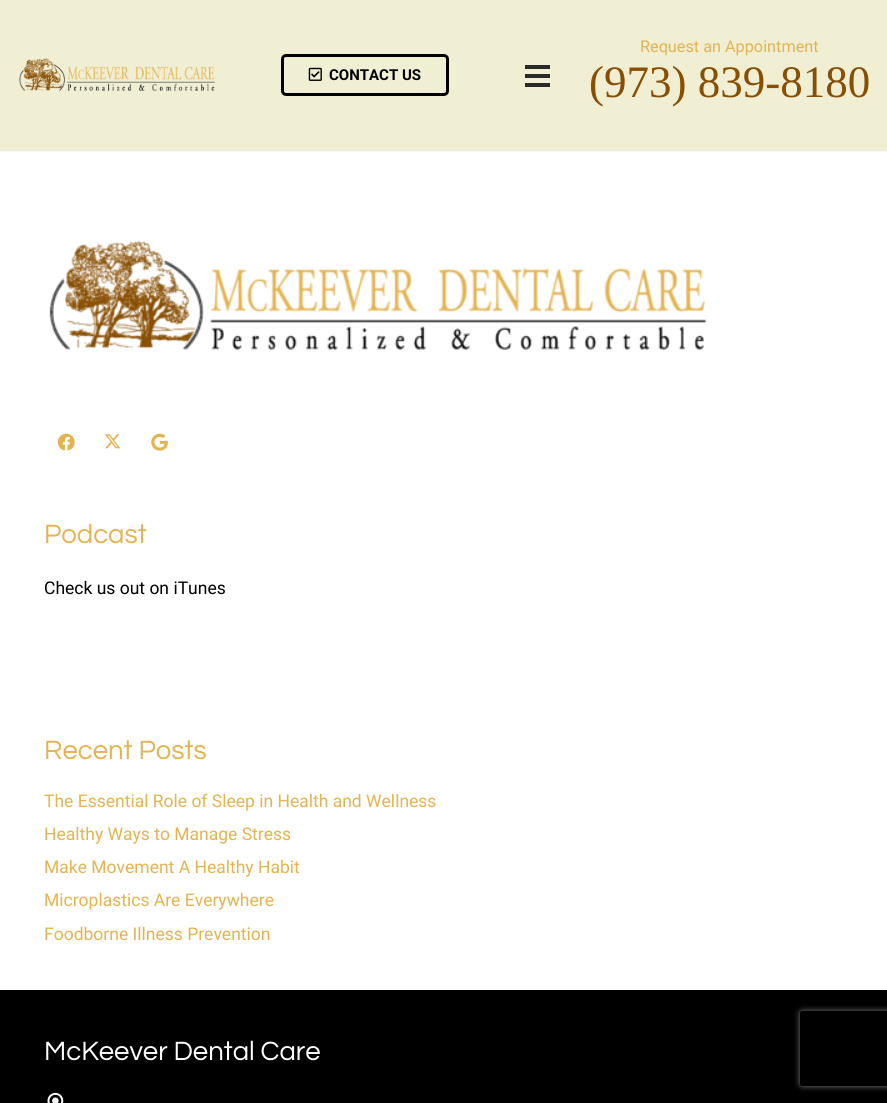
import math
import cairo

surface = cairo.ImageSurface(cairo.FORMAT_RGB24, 887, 1103)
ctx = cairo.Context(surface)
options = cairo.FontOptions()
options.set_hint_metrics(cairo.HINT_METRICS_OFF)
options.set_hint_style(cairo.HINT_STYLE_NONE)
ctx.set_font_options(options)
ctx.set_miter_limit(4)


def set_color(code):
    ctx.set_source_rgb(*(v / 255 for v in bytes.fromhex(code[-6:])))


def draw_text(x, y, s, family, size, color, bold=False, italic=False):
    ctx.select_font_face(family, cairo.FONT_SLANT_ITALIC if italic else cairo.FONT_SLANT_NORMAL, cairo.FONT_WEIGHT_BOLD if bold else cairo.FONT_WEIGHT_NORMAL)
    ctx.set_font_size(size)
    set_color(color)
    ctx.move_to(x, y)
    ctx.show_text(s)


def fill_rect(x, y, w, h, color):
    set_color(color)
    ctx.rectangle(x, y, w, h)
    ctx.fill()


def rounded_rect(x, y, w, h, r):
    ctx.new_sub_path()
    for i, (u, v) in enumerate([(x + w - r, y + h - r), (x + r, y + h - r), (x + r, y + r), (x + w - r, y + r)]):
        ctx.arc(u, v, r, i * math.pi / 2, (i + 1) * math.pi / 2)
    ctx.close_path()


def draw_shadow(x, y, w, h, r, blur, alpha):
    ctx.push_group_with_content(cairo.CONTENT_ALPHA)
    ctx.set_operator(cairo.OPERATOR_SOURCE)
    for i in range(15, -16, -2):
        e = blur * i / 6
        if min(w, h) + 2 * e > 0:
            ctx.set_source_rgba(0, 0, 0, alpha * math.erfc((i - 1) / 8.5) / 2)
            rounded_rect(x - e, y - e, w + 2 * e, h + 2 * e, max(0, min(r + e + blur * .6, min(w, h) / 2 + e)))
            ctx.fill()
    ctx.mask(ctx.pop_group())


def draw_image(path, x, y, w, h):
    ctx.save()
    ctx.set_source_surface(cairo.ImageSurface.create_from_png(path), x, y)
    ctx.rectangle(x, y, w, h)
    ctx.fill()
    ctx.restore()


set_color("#ffffff")
ctx.paint()
set_color("#ebebeb")
ctx.new_path()
ctx.move_to(0, 150)
ctx.line_to(0, 151)
ctx.line_to(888, 151)
ctx.line_to(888, 1)
ctx.line_to(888, 150)
ctx.close_path()
ctx.fill()
fill_rect(0, 0, 887, 150, "#f0eed3")
draw_image("assets/img1.png", 19, 58, 196, 33)
rounded_rect(282.5, 55.5, 165, 39, 3.5)
set_color("#000000")
ctx.set_line_width(3)
ctx.stroke()
draw_image("assets/img2.png", 308, 67, 14, 14)
draw_text(329, 80, "CONTACT US", "Roboto", 15, "#000000", bold=True)
fill_rect(525, 74, 25, 4, "#292929")
fill_rect(525, 65, 25, 4, "#292929")
fill_rect(525, 83, 25, 4, "#292929")
draw_text(640, 52, "Request an Appointment", "Roboto", 16.25, "#e5b351")
draw_text(589, 97, "(973) 839-8180", "Liberation Serif", 45, "#884e01")
draw_image("assets/img3.png", 49, 241, 658, 109)
draw_image("assets/img4.png", 57, 433, 18, 18)
draw_image("assets/img5.png", 104, 434, 17, 15)
draw_image("assets/img6.png", 151, 433, 17, 18)
draw_text(44, 543, "Podcast", "Questrial", 27.5, "#e5b351")
draw_text(44, 594, "Check us out on iTunes", "Roboto", 17.5, "#000000")
draw_text(44, 759, "Recent Posts", "Questrial", 27.5, "#e5b351")
draw_text(44, 807, "The Essential Role of Sleep in Health and Wellness", "Roboto", 17.5, "#e5b351")
draw_text(44, 840, "Healthy Ways to Manage Stress", "Roboto", 17.5, "#e5b351")
draw_text(44, 873, "Make Movement A Healthy Habit", "Roboto", 17.5, "#e5b351")
draw_text(44, 906, "Microplastics Are Everywhere", "Roboto", 17.5, "#e5b351")
draw_text(44, 940, "Foodborne Illness Prevention", "Roboto", 17.5, "#e5b351")
fill_rect(0, 990, 887, 113, "#000000")
draw_text(44, 1060, "McKeever Dental Care", "Questrial", 27.5, "#ffffff")
draw_image("assets/img7.png", 47, 1092, 17, 11)
ctx.save()
ctx.set_fill_rule(cairo.FILL_RULE_EVEN_ODD)
ctx.new_path()
ctx.move_to(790, 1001)
ctx.line_to(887, 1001)
ctx.line_to(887, 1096)
ctx.line_to(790, 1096)
ctx.close_path()
ctx.move_to(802.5, 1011)
ctx.line_to(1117.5, 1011)
ctx.curve_to(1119, 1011, 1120, 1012, 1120, 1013.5)
ctx.line_to(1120, 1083.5)
ctx.curve_to(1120, 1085, 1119, 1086, 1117.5, 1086)
ctx.line_to(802.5, 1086)
ctx.curve_to(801, 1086, 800, 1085, 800, 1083.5)
ctx.line_to(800, 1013.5)
ctx.curve_to(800, 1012, 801, 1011, 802.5, 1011)
ctx.close_path()
ctx.clip()
set_color("#808080")
draw_shadow(800, 1011, 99, 75, 2.5, 3, 1)
ctx.restore()
surface.write_to_png("output.png")
